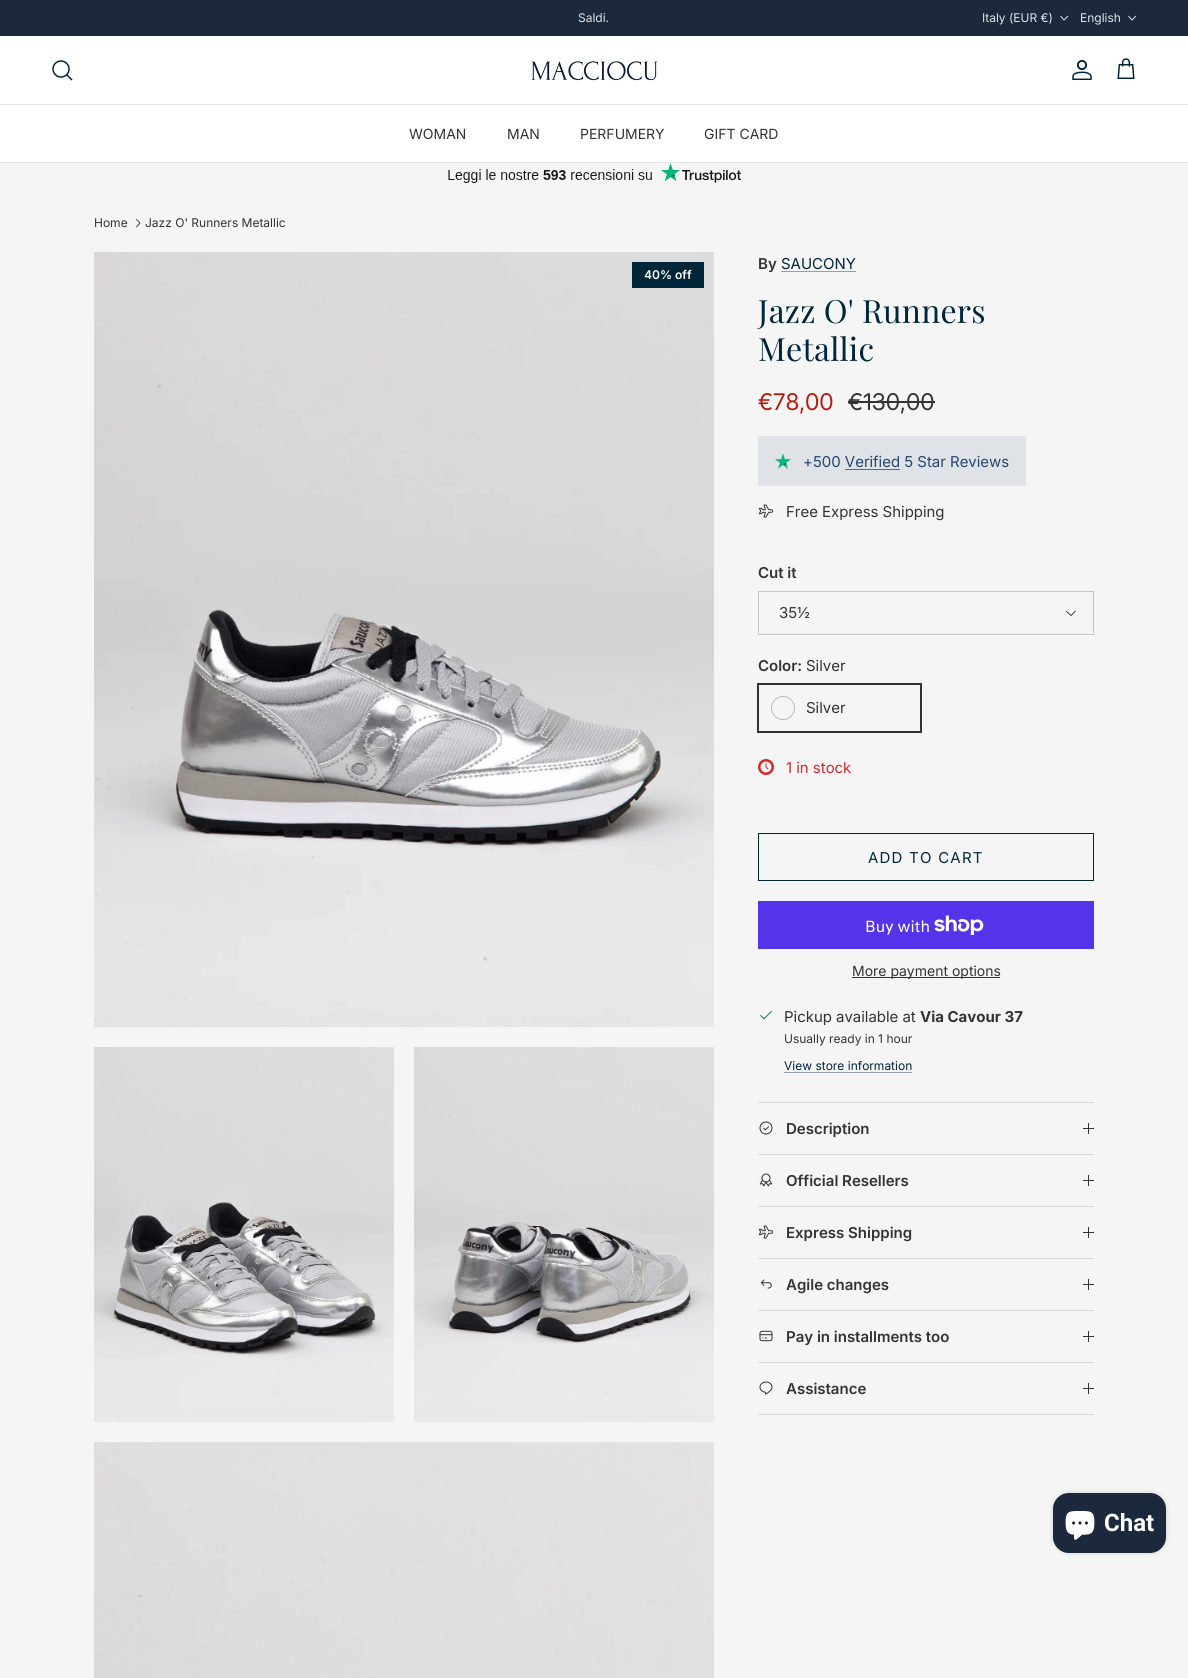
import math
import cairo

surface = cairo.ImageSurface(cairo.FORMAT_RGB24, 1188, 1678)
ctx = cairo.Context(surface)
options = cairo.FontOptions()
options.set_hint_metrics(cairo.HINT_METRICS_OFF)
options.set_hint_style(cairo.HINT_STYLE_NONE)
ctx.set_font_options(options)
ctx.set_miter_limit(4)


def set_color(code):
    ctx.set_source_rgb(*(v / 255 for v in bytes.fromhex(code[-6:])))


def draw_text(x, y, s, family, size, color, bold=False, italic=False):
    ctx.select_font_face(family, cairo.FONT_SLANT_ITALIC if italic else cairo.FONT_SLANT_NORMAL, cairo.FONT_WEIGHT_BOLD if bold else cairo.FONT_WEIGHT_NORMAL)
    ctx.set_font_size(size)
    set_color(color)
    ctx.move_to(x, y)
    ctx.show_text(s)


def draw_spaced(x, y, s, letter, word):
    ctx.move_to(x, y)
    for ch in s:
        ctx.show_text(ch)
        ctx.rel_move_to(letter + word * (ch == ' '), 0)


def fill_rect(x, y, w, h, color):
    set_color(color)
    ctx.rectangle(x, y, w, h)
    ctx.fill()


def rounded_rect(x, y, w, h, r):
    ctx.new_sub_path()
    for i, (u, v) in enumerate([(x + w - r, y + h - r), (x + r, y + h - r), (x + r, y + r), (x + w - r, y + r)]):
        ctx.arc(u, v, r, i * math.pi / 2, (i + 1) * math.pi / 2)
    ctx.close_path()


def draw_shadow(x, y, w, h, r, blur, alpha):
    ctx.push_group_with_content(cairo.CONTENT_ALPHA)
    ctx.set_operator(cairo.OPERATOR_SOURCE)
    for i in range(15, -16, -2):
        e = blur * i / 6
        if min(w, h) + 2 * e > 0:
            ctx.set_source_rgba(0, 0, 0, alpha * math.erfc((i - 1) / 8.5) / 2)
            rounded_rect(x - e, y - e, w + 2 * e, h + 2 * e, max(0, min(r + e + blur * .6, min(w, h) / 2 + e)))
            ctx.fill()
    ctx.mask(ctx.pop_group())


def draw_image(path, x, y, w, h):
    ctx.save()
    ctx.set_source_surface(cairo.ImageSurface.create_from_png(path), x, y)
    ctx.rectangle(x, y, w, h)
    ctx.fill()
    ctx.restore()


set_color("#f5f5f5")
ctx.paint()
fill_rect(0, 0, 1188, 36, "#1c283c")
draw_text(578, 22, "Saldi.", "Inter", 12, "#dfe3e8")
draw_text(982, 22, "Italy (EUR €)", "Inter", 12, "#dfe3e8")
ctx.new_path()
ctx.move_to(1068, 16)
ctx.line_to(1064, 20)
ctx.line_to(1060.5, 16)
ctx.set_line_width(1)
ctx.stroke()
draw_text(1080, 22, "English", "Inter", 12, "#dfe3e8")
ctx.new_path()
ctx.move_to(1136, 16)
ctx.line_to(1132, 20)
ctx.line_to(1128.5, 16)
ctx.stroke()
fill_rect(0, 36, 1188, 68, "#ffffff")
fill_rect(0, 104, 1188, 1, "#e3e3e3")
ctx.arc(61, 69, 8, 0, 2 * math.pi)
set_color("#00263a")
ctx.set_line_width(1.5)
ctx.stroke()
ctx.new_path()
ctx.move_to(67, 75)
ctx.line_to(71.5, 79.5)
ctx.set_line_cap(cairo.LINE_CAP_SQUARE)
ctx.stroke()
draw_image("assets/img1.png", 531, 61, 127, 20)
draw_image("assets/img2.png", 1072, 60, 20, 20)
draw_image("assets/img3.png", 1117, 58, 18, 21)
fill_rect(0, 162, 1188, 1, "#e3e3e3")
fill_rect(0, 105, 1188, 57, "#ffffff")
draw_text(409, 139, "WOMAN", "Inter", 14, "#333333")
draw_text(507, 139, "MAN", "Inter", 14, "#333333")
draw_text(580, 139, "PERFUMERY", "Inter", 14, "#333333")
draw_text(704, 139, "GIFT CARD", "Inter", 14, "#333333")
draw_image("assets/img4.png", 448, 163, 293, 20)
draw_text(94, 227, "Home", "Inter", 12, "#333333")
ctx.new_path()
ctx.move_to(136.5, 227)
ctx.line_to(140, 223)
ctx.line_to(136.5, 219.5)
ctx.set_line_width(0.9)
ctx.set_line_cap(cairo.LINE_CAP_ROUND)
ctx.set_line_join(cairo.LINE_JOIN_ROUND)
ctx.stroke()
draw_text(145, 227, "Jazz O' Runners Metallic", "Inter", 12, "#333333")
draw_image("assets/img5.png", 94, 252, 620, 775)
draw_image("assets/img6.png", 94, 1047, 300, 375)
draw_image("assets/img7.png", 414, 1047, 300, 375)
draw_image("assets/img8.png", 94, 1442, 620, 236)
fill_rect(632, 262, 72, 26, "#00263a")
draw_text(644, 279, "40% off", "Inter SemiBold", 12, "#ffffff")
draw_text(758, 269, "By", "Inter SemiBold", 15, "#333333")
draw_text(781, 269, "SAUCONY", "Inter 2", 15, "#00263a")
fill_rect(781, 271, 75, 1, "#93a2aa")
ctx.select_font_face("Playfair Display")
ctx.set_font_size(32)
set_color("#00263a")
draw_spaced(758, 323, "Jazz O' Runners", 0.2, 0)
draw_spaced(758, 361, "Metallic", 0.2, 0)
draw_text(758, 410, "€78,00", "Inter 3", 23, "#b61d0f")
draw_text(848, 410, "€130,00", "Inter 3", 23, "#333333")
fill_rect(848, 401, 87, 2, "#333333")
fill_rect(758, 436, 268, 50, "#dfe3e8")
draw_image("assets/img9.png", 775, 453, 16, 16)
draw_text(803, 467, "+500 Verified 5 Star Reviews", "Inter 2", 15, "#28466d")
fill_rect(845, 469, 55, 1, "#566d8c")
draw_image("assets/img10.png", 758, 504, 16, 14)
draw_text(786, 517, "Free Express Shipping", "Inter 2", 15, "#333333")
draw_text(758, 578, "Cut it", "Inter SemiBold", 15, "#333333")
ctx.rectangle(758.5, 591.5, 335, 43)
set_color("#c5c5c5")
ctx.set_line_width(1)
ctx.set_line_cap(cairo.LINE_CAP_BUTT)
ctx.set_line_join(cairo.LINE_JOIN_MITER)
ctx.stroke()
draw_text(779, 618, "35½", "Inter 2", 15, "#333333")
ctx.new_path()
ctx.move_to(1075.5, 611)
ctx.line_to(1071, 615.5)
ctx.line_to(1066, 611)
ctx.set_line_width(0.9)
ctx.stroke()
draw_text(758, 671, "Color:", "Inter SemiBold", 15, "#333333")
draw_text(806, 671, "Silver", "Inter 2", 15, "#333333")
ctx.rectangle(757.5, 683.5, 164, 49)
ctx.set_line_width(1)
ctx.stroke()
ctx.rectangle(758.5, 684.5, 162, 47)
ctx.stroke()
ctx.arc(783, 708, 11.5, 0, 2 * math.pi)
set_color("#bbbbbb")
ctx.stroke()
draw_text(806, 713, "Silver", "Inter 2", 15, "#333333")
set_color("#d62828")
ctx.new_path()
ctx.arc(766, 767, 8, 0, 2 * math.pi)
ctx.fill()
draw_image("assets/img11.png", 760, 761, 12, 12)
draw_text(786, 773, "1 in stock", "Inter 2", 15, "#d62828")
ctx.rectangle(758.5, 833.5, 335, 47)
set_color("#00263a")
ctx.stroke()
draw_spaced(868, 863, "ADD TO CART", 1.25, 0)
fill_rect(758, 901, 336, 48, "#5433eb")
draw_text(865, 932, "Buy with", "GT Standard", 16, "#ffffff")
draw_image("assets/img12.png", 934, 915, 50, 20)
fill_rect(852, 977, 148, 1, "#333333")
draw_text(852, 976, "More payment options", "Inter", 14, "#333333")
draw_image("assets/img13.png", 760, 1010, 12, 10)
draw_text(784, 1022, "Pickup available at", "Inter 2", 15, "#333333")
draw_text(920, 1022, "Via Cavour 37", "Inter", 15, "#333333", bold=True)
draw_text(784, 1043, "Usually ready in 1 hour", "Inter", 12, "#333333")
draw_text(784, 1070, "View store information", "Inter", 12, "#00263a")
fill_rect(784, 1072, 128, 1, "#93a2aa")
fill_rect(758, 1102, 336, 1, "#d8d8d8")
fill_rect(758, 1154, 336, 1, "#d8d8d8")
draw_image("assets/img14.png", 759, 1121, 14, 14)
draw_text(786, 1134, "Description", "Inter SemiBold", 15, "#333333")
fill_rect(1088, 1123, 1, 11, "#333333")
fill_rect(1083, 1128, 11, 1, "#333333")
fill_rect(758, 1206, 336, 1, "#d8d8d8")
draw_image("assets/img15.png", 759, 1173, 14, 14)
draw_text(786, 1186, "Official Resellers", "Inter SemiBold", 15, "#333333")
fill_rect(1088, 1175, 1, 11, "#333333")
fill_rect(1083, 1180, 11, 1, "#333333")
fill_rect(758, 1258, 336, 1, "#d8d8d8")
draw_image("assets/img10.png", 758, 1225, 16, 14)
draw_text(786, 1238, "Express Shipping", "Inter SemiBold", 15, "#333333")
fill_rect(1088, 1227, 1, 11, "#333333")
fill_rect(1083, 1232, 11, 1, "#333333")
fill_rect(758, 1310, 336, 1, "#d8d8d8")
draw_image("assets/img16.png", 760, 1279, 12, 10)
draw_text(786, 1290, "Agile changes", "Inter SemiBold", 15, "#333333")
fill_rect(1088, 1279, 1, 11, "#333333")
fill_rect(1083, 1284, 11, 1, "#333333")
fill_rect(758, 1362, 336, 1, "#d8d8d8")
draw_image("assets/img17.png", 759, 1330, 14, 12)
draw_text(786, 1342, "Pay in installments too", "Inter SemiBold", 15, "#333333")
fill_rect(1088, 1331, 1, 11, "#333333")
fill_rect(1083, 1336, 11, 1, "#333333")
fill_rect(758, 1414, 336, 1, "#d8d8d8")
draw_image("assets/img18.png", 759, 1381, 14, 14)
draw_text(786, 1394, "Assistance", "Inter SemiBold", 15, "#333333")
fill_rect(1088, 1383, 1, 11, "#333333")
fill_rect(1083, 1388, 11, 1, "#333333")
set_color("#000000")
draw_shadow(1053, 1493, 113, 60, 16, 2.5, 0.15)
set_color("#1c283c")
rounded_rect(1053, 1493, 113, 60, 16)
ctx.fill()
draw_image("assets/img19.png", 1065, 1511, 30, 29)
draw_text(1104, 1531, "Chat", "Roboto", 24, "#ffffff", bold=True)
surface.write_to_png("output.png")
